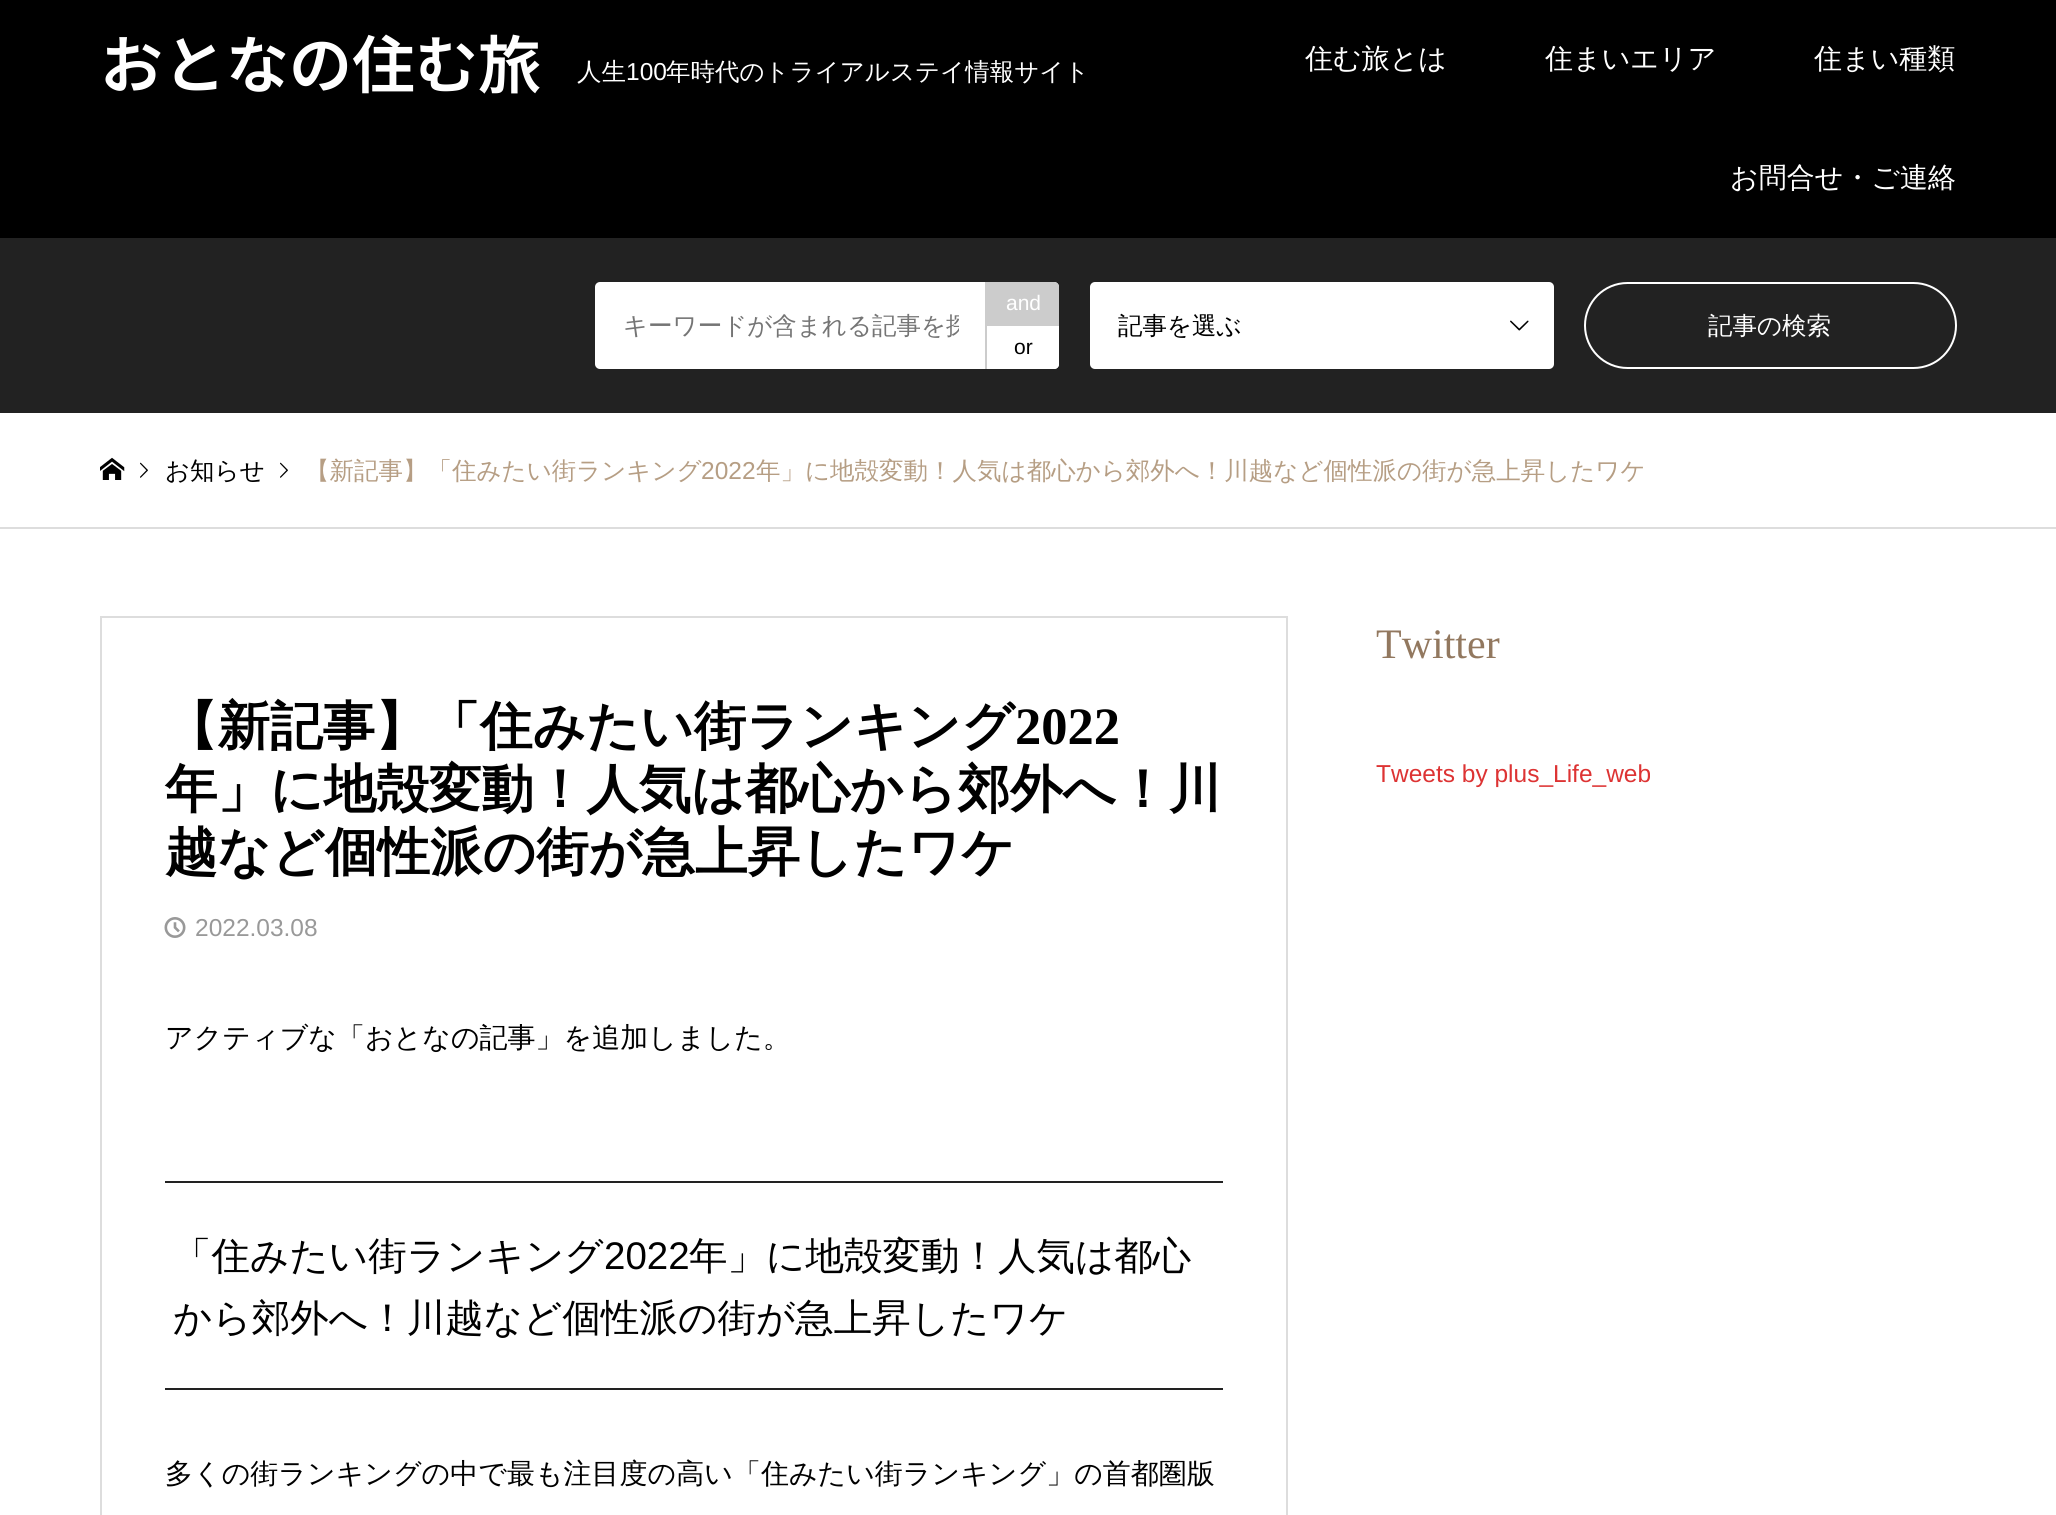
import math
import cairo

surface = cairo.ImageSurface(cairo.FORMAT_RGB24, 2056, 1515)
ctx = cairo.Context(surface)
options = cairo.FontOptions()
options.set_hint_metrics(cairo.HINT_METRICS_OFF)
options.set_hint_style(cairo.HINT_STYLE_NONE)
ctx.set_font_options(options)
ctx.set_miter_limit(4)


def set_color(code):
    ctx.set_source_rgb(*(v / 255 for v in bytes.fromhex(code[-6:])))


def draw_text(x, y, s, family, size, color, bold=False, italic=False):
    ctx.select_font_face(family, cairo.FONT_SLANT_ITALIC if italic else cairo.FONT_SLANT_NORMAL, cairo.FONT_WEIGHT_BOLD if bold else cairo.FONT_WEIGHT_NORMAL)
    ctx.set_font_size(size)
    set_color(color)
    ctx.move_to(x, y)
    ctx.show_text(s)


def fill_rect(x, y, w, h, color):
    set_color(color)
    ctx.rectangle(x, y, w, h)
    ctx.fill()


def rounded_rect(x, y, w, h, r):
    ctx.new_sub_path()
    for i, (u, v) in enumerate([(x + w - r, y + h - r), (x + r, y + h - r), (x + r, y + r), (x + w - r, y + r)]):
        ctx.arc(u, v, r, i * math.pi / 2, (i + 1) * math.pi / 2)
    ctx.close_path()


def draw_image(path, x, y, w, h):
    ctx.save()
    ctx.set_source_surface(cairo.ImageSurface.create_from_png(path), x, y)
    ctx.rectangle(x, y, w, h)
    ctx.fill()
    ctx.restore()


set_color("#ffffff")
ctx.paint()
fill_rect(0, 0, 2056, 238, "#000000")
draw_text(100, 88, "おとなの住む旅", "Noto Sans JP SemiBold", 63, "#ffffff")
draw_text(577, 80, "人生", "WenQuanYi Zen Hei Medium", 24.5, "#ffffff")
draw_text(626, 80, "100", "Liberation Sans", 24.5, "#ffffff")
draw_text(666, 80, "年時代のトライアルステイ情報サイト", "WenQuanYi Zen Hei Medium", 24.5, "#ffffff")
draw_text(1305, 68, "住む旅とは", "WenQuanYi Zen Hei Medium", 28, "#ffffff")
draw_text(1545, 68, "住まいエリア", "WenQuanYi Zen Hei Medium", 28, "#ffffff")
draw_text(1814, 68, "住まい種類", "WenQuanYi Zen Hei Medium", 28, "#ffffff")
draw_text(1730, 187, "お問合せ・ご連絡", "WenQuanYi Zen Hei Medium", 28, "#ffffff")
fill_rect(0, 238, 2056, 175, "#222222")
set_color("#ffffff")
rounded_rect(595, 282, 464, 87, 5)
ctx.fill()
ctx.save()
ctx.rectangle(623, 312, 336, 31)
ctx.clip()
draw_text(623, 334, "キーワードが含まれる記事を探", "WenQuanYi Zen Hei Medium", 24.5, "#757575")
ctx.restore()
set_color("#cccccc")
ctx.new_path()
ctx.move_to(985, 282)
ctx.line_to(1054, 282)
ctx.curve_to(1057, 282, 1059, 284, 1059, 287)
ctx.line_to(1059, 326)
ctx.line_to(985, 326)
ctx.close_path()
ctx.fill()
draw_text(1006, 310, "and", "Liberation Sans", 21, "#ffffff")
ctx.new_path()
ctx.move_to(985, 326)
ctx.line_to(1059, 326)
ctx.line_to(1059, 364)
ctx.curve_to(1059, 367, 1057, 369, 1054, 369)
ctx.line_to(985, 369)
ctx.close_path()
ctx.fill()
fill_rect(985, 326, 2, 43, "#cccccc")
draw_text(1014, 354, "or", "Liberation Sans", 21, "#000000")
set_color("#ffffff")
rounded_rect(1090, 282, 464, 87, 5)
ctx.fill()
draw_text(1118, 334, "記事を選ぶ", "WenQuanYi Zen Hei Medium", 24.5, "#000000")
draw_image("assets/img1.png", 1510, 320, 19, 11)
rounded_rect(1585, 283, 371, 85, 42.5)
set_color("#ffffff")
ctx.stroke()
draw_text(1708, 334, "記事の検索", "WenQuanYi Zen Hei Medium", 24.5, "#ffffff")
fill_rect(0, 527, 2056, 2, "#dddddd")
draw_image("assets/img2.png", 100, 457, 25, 23)
draw_image("assets/img3.png", 140, 462, 8, 16)
draw_text(165, 479, "お知らせ", "WenQuanYi Zen Hei Medium", 24.5, "#000000")
draw_image("assets/img3.png", 280, 462, 8, 16)
draw_text(305, 479, "【新記事】「住みたい街ランキング", "WenQuanYi Zen Hei Medium", 24.5, "#b69e84")
draw_text(701, 479, "2022", "Liberation Sans", 24.5, "#b69e84")
draw_text(756, 479, "年」に地殻変動！人気は都心から郊外へ！川越など個性派の街が急上昇したワケ", "WenQuanYi Zen Hei Medium", 24.5, "#b69e84")
ctx.rectangle(101, 617, 1186, 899)
set_color("#dddddd")
ctx.stroke()
draw_text(165, 744, "【新記事】「住みたい街ランキング", "WenQuanYi Zen Hei", 52.5, "#000000", bold=True)
draw_text(1015, 744, "2022", "Liberation Serif", 52.5, "#000000", bold=True)
draw_text(165, 807, "年」に地殻変動！人気は都心から郊外へ！川", "WenQuanYi Zen Hei", 52.5, "#000000", bold=True)
draw_text(165, 870, "越など個性派の街が急上昇したワケ", "WenQuanYi Zen Hei", 52.5, "#000000", bold=True)
draw_image("assets/img4.png", 164, 917, 22, 21)
draw_text(195, 936, "2022.03.08", "Liberation Sans", 24.5, "#999999")
draw_text(165, 1047, "アクティブな「おとなの記事」を追加しました。", "WenQuanYi Zen Hei Medium", 28, "#000000")
fill_rect(165, 1181, 1058, 2, "#222222")
fill_rect(165, 1388, 1058, 2, "#222222")
draw_text(173, 1269, "「住みたい街ランキング", "WenQuanYi Zen Hei Medium", 38.5, "#000000")
draw_text(604, 1269, "2022", "Liberation Sans", 38.5, "#000000")
draw_text(689, 1269, "年」に地殻変動！人気は都心", "WenQuanYi Zen Hei Medium", 38.5, "#000000")
draw_text(173, 1331, "から郊外へ！川越など個性派の街が急上昇したワケ", "WenQuanYi Zen Hei Medium", 38.5, "#000000")
draw_text(165, 1483, "多くの街ランキングの中で最も注目度の高い「住みたい街ランキング」の首都圏版", "WenQuanYi Zen Hei Medium", 28, "#000000")
draw_text(1376, 658, "Twitter", "Liberation Serif", 42, "#92785f")
draw_text(1376, 782, "Tweets by plus_Life_web", "Liberation Sans", 24.5, "#dd3333")
surface.write_to_png("output.png")
